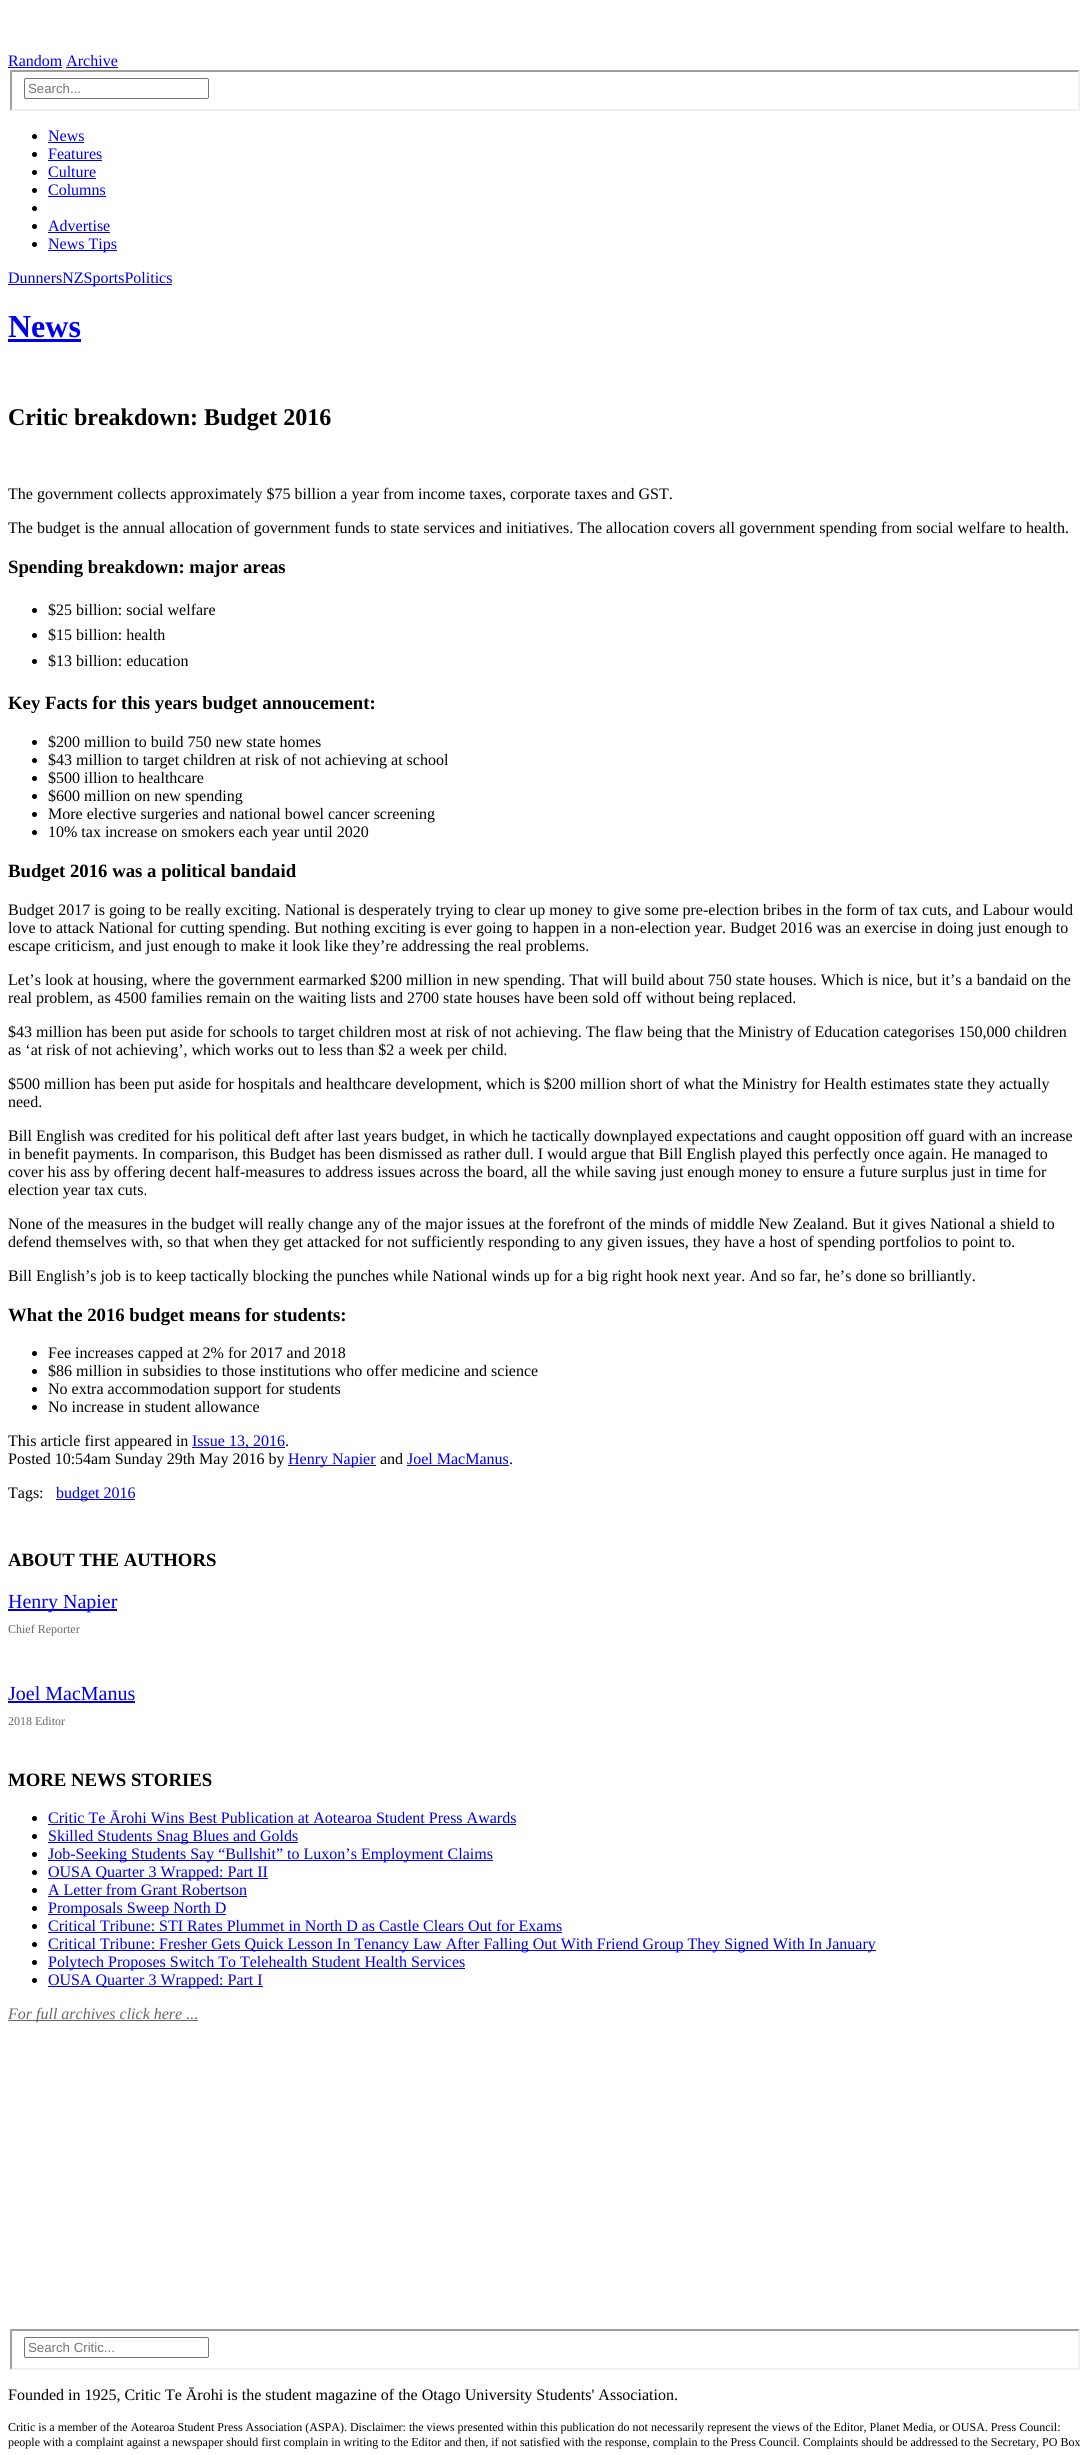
import math
import cairo

surface = cairo.ImageSurface(cairo.FORMAT_RGB24, 1090, 2455)
ctx = cairo.Context(surface)
options = cairo.FontOptions()
options.set_hint_metrics(cairo.HINT_METRICS_OFF)
options.set_hint_style(cairo.HINT_STYLE_NONE)
ctx.set_font_options(options)
ctx.set_miter_limit(4)


def set_color(code):
    ctx.set_source_rgb(*(v / 255 for v in bytes.fromhex(code[-6:])))


def draw_text(x, y, s, family, size, color, bold=False, italic=False):
    ctx.select_font_face(family, cairo.FONT_SLANT_ITALIC if italic else cairo.FONT_SLANT_NORMAL, cairo.FONT_WEIGHT_BOLD if bold else cairo.FONT_WEIGHT_NORMAL)
    ctx.set_font_size(size)
    set_color(color)
    ctx.move_to(x, y)
    ctx.show_text(s)


def fill_rect(x, y, w, h, color):
    set_color(color)
    ctx.rectangle(x, y, w, h)
    ctx.fill()


def rounded_rect(x, y, w, h, r):
    ctx.new_sub_path()
    for i, (u, v) in enumerate([(x + w - r, y + h - r), (x + r, y + h - r), (x + r, y + r), (x + w - r, y + r)]):
        ctx.arc(u, v, r, i * math.pi / 2, (i + 1) * math.pi / 2)
    ctx.close_path()


set_color("#ffffff")
ctx.paint()
draw_text(8, 66, "Random Archive", "Liberation Serif", 16, "#0000ee")
fill_rect(8, 67, 54, 1, "#0000ee")
fill_rect(66, 67, 52, 1, "#0000ee")
set_color("#9f9f9f")
ctx.new_path()
ctx.move_to(10, 70)
ctx.line_to(1080, 70)
ctx.line_to(1078, 72)
ctx.line_to(12, 72)
ctx.close_path()
ctx.fill()
set_color("#efefef")
ctx.new_path()
ctx.move_to(1080, 70)
ctx.line_to(1080, 111)
ctx.line_to(1078, 109)
ctx.line_to(1078, 72)
ctx.close_path()
ctx.fill()
ctx.new_path()
ctx.move_to(1080, 111)
ctx.line_to(10, 111)
ctx.line_to(12, 109)
ctx.line_to(1078, 109)
ctx.close_path()
ctx.fill()
set_color("#9f9f9f")
ctx.new_path()
ctx.move_to(10, 111)
ctx.line_to(10, 70)
ctx.line_to(12, 72)
ctx.line_to(12, 109)
ctx.close_path()
ctx.fill()
rounded_rect(24.5, 78.5, 184, 20, 1.5)
set_color("#767676")
ctx.set_line_width(1)
ctx.stroke()
draw_text(28, 93, "Search...", "Liberation Sans", 13.25, "#757575")
set_color("#000000")
ctx.new_path()
ctx.arc(34.5, 136.5, 2.5, 0, 2 * math.pi)
ctx.fill()
draw_text(48, 141, "News", "Liberation Serif", 16, "#0000ee")
fill_rect(48, 142, 36, 1, "#0000ee")
set_color("#000000")
ctx.new_path()
ctx.arc(34.5, 154.5, 2.5, 0, 2 * math.pi)
ctx.fill()
draw_text(48, 159, "Features", "Liberation Serif", 16, "#0000ee")
fill_rect(48, 160, 54, 1, "#0000ee")
set_color("#000000")
ctx.new_path()
ctx.arc(34.5, 172.5, 2.5, 0, 2 * math.pi)
ctx.fill()
draw_text(48, 177, "Culture", "Liberation Serif", 16, "#0000ee")
fill_rect(48, 178, 48, 1, "#0000ee")
set_color("#000000")
ctx.new_path()
ctx.arc(34.5, 190.5, 2.5, 0, 2 * math.pi)
ctx.fill()
draw_text(48, 195, "Columns", "Liberation Serif", 16, "#0000ee")
fill_rect(48, 196, 58, 1, "#0000ee")
set_color("#000000")
ctx.new_path()
ctx.arc(34.5, 208.5, 2.5, 0, 2 * math.pi)
ctx.fill()
ctx.arc(34.5, 226.5, 2.5, 0, 2 * math.pi)
ctx.fill()
draw_text(48, 231, "Advertise", "Liberation Serif", 16, "#0000ee")
fill_rect(48, 232, 62, 1, "#0000ee")
set_color("#000000")
ctx.new_path()
ctx.arc(34.5, 244.5, 2.5, 0, 2 * math.pi)
ctx.fill()
fill_rect(48, 250, 69, 1, "#0000ee")
draw_text(48, 249, "News Tips", "Liberation Serif", 16, "#0000ee")
fill_rect(8, 284, 164, 1, "#0000ee")
draw_text(8, 283, "DunnersNZSportsPolitics", "Liberation Serif", 16, "#0000ee")
draw_text(8, 337, "News", "Liberation Serif", 32, "#0000ee", bold=True)
fill_rect(8, 339, 73, 3, "#0000ee")
draw_text(8, 425, "Critic breakdown: Budget 2016", "Liberation Serif", 24, "#000000", bold=True)
draw_text(8, 499, "The government collects approximately $75 billion a year from income taxes, corporate taxes and GST.", "Liberation Serif", 16, "#000000")
draw_text(8, 533, "The budget is the annual allocation of government funds to state services and initiatives. The allocation covers all government spending from social welfare to health.", "Liberation Serif", 16, "#000000")
draw_text(8, 573, "Spending breakdown: major areas", "Liberation Serif", 18.75, "#000000", bold=True)
ctx.new_path()
ctx.arc(34.5, 610.5, 2.5, 0, 2 * math.pi)
ctx.fill()
draw_text(48, 615, "$25 billion: social welfare", "Liberation Serif", 16, "#000000")
ctx.new_path()
ctx.arc(34.5, 635.5, 2.5, 0, 2 * math.pi)
ctx.fill()
draw_text(48, 640, "$15 billion: health", "Liberation Serif", 16, "#000000")
ctx.new_path()
ctx.arc(34.5, 661.5, 2.5, 0, 2 * math.pi)
ctx.fill()
draw_text(48, 666, "$13 billion: education", "Liberation Serif", 16, "#000000")
draw_text(8, 709, "Key Facts for this years budget annoucement:", "Liberation Serif", 18.75, "#000000", bold=True)
ctx.new_path()
ctx.arc(34.5, 742.5, 2.5, 0, 2 * math.pi)
ctx.fill()
draw_text(48, 747, "$200 million to build 750 new state homes", "Liberation Serif", 16, "#000000")
ctx.new_path()
ctx.arc(34.5, 760.5, 2.5, 0, 2 * math.pi)
ctx.fill()
draw_text(48, 765, "$43 million to target children at risk of not achieving at school", "Liberation Serif", 16, "#000000")
ctx.new_path()
ctx.arc(34.5, 778.5, 2.5, 0, 2 * math.pi)
ctx.fill()
draw_text(48, 783, "$500 illion to healthcare", "Liberation Serif", 16, "#000000")
ctx.new_path()
ctx.arc(34.5, 796.5, 2.5, 0, 2 * math.pi)
ctx.fill()
draw_text(48, 801, "$600 million on new spending", "Liberation Serif", 16, "#000000")
ctx.new_path()
ctx.arc(34.5, 814.5, 2.5, 0, 2 * math.pi)
ctx.fill()
draw_text(48, 819, "More elective surgeries and national bowel cancer screening", "Liberation Serif", 16, "#000000")
ctx.new_path()
ctx.arc(34.5, 832.5, 2.5, 0, 2 * math.pi)
ctx.fill()
draw_text(48, 837, "10% tax increase on smokers each year until 2020", "Liberation Serif", 16, "#000000")
draw_text(8, 877, "Budget 2016 was a political bandaid", "Liberation Serif", 18.75, "#000000", bold=True)
draw_text(8, 915, "Budget 2017 is going to be really exciting. National is desperately trying to clear up money to give some pre-election bribes in the form of tax cuts, and Labour would", "Liberation Serif", 16, "#000000")
draw_text(8, 933, "love to attack National for cutting spending. But nothing exciting is ever going to happen in a non-election year. Budget 2016 was an exercise in doing just enough to", "Liberation Serif", 16, "#000000")
draw_text(8, 951, "escape criticism, and just enough to make it look like they’re addressing the real problems.", "Liberation Serif", 16, "#000000")
draw_text(8, 985, "Let’s look at housing, where the government earmarked $200 million in new spending. That will build about 750 state houses. Which is nice, but it’s a bandaid on the", "Liberation Serif", 16, "#000000")
draw_text(8, 1003, "real problem, as 4500 families remain on the waiting lists and 2700 state houses have been sold off without being replaced.", "Liberation Serif", 16, "#000000")
draw_text(8, 1037, "$43 million has been put aside for schools to target children most at risk of not achieving. The flaw being that the Ministry of Education categorises 150,000 children", "Liberation Serif", 16, "#000000")
draw_text(8, 1055, "as ‘at risk of not achieving’, which works out to less than $2 a week per child.", "Liberation Serif", 16, "#000000")
draw_text(8, 1089, "$500 million has been put aside for hospitals and healthcare development, which is $200 million short of what the Ministry for Health estimates state they actually", "Liberation Serif", 16, "#000000")
draw_text(8, 1107, "need.", "Liberation Serif", 16, "#000000")
draw_text(8, 1141, "Bill English was credited for his political deft after last years budget, in which he tactically downplayed expectations and caught opposition off guard with an increase", "Liberation Serif", 16, "#000000")
draw_text(8, 1159, "in benefit payments. In comparison, this Budget has been dismissed as rather dull. I would argue that Bill English played this perfectly once again. He managed to", "Liberation Serif", 16, "#000000")
draw_text(8, 1177, "cover his ass by offering decent half-measures to address issues across the board, all the while saving just enough money to ensure a future surplus just in time for", "Liberation Serif", 16, "#000000")
draw_text(8, 1195, "election year tax cuts.", "Liberation Serif", 16, "#000000")
draw_text(8, 1229, "None of the measures in the budget will really change any of the major issues at the forefront of the minds of middle New Zealand. But it gives National a shield to", "Liberation Serif", 16, "#000000")
draw_text(8, 1247, "defend themselves with, so that when they get attacked for not sufficiently responding to any given issues, they have a host of spending portfolios to point to.", "Liberation Serif", 16, "#000000")
draw_text(8, 1281, "Bill English’s job is to keep tactically blocking the punches while National winds up for a big right hook next year. And so far, he’s done so brilliantly.", "Liberation Serif", 16, "#000000")
draw_text(8, 1321, "What the 2016 budget means for students:", "Liberation Serif", 18.75, "#000000", bold=True)
ctx.new_path()
ctx.arc(34.5, 1353.5, 2.5, 0, 2 * math.pi)
ctx.fill()
draw_text(48, 1358, "Fee increases capped at 2% for 2017 and 2018", "Liberation Serif", 16, "#000000")
ctx.new_path()
ctx.arc(34.5, 1371.5, 2.5, 0, 2 * math.pi)
ctx.fill()
draw_text(48, 1376, "$86 million in subsidies to those institutions who offer medicine and science", "Liberation Serif", 16, "#000000")
ctx.new_path()
ctx.arc(34.5, 1389.5, 2.5, 0, 2 * math.pi)
ctx.fill()
draw_text(48, 1394, "No extra accommodation support for students", "Liberation Serif", 16, "#000000")
ctx.new_path()
ctx.arc(34.5, 1407.5, 2.5, 0, 2 * math.pi)
ctx.fill()
draw_text(48, 1412, "No increase in student allowance", "Liberation Serif", 16, "#000000")
draw_text(8, 1446, "This article first appeared in", "Liberation Serif", 16, "#000000")
fill_rect(192, 1447, 93, 1, "#0000ee")
draw_text(192, 1446, "Issue 13, 2016", "Liberation Serif", 16, "#0000ee")
draw_text(285, 1446, ".", "Liberation Serif", 16, "#000000")
draw_text(8, 1464, "Posted 10:54am Sunday 29th May 2016 by", "Liberation Serif", 16, "#000000")
fill_rect(288, 1465, 88, 1, "#0000ee")
draw_text(288, 1464, "Henry Napier", "Liberation Serif", 16, "#0000ee")
draw_text(380, 1464, "and", "Liberation Serif", 16, "#000000")
draw_text(407, 1464, "Joel MacManus", "Liberation Serif", 16, "#0000ee")
fill_rect(407, 1465, 102, 1, "#0000ee")
draw_text(509, 1464, ".", "Liberation Serif", 16, "#000000")
draw_text(8, 1498, "Tags:", "Liberation Serif", 16, "#000000")
fill_rect(56, 1499, 79, 1, "#0000ee")
draw_text(56, 1498, "budget 2016", "Liberation Serif", 16, "#0000ee")
draw_text(8, 1566, "ABOUT THE AUTHORS", "Liberation Serif", 18.75, "#000000", bold=True)
fill_rect(8, 1609, 109, 2, "#0000ee")
draw_text(8, 1608, "Henry Napier", "Liberation Serif", 20, "#0000ee")
draw_text(8, 1633, "Chief Reporter", "Liberation Serif", 12, "#666666")
draw_text(8, 1700, "Joel MacManus", "Liberation Serif", 20, "#0000ee")
fill_rect(8, 1701, 127, 2, "#0000ee")
draw_text(8, 1725, "2018 Editor", "Liberation Serif", 12, "#666666")
draw_text(8, 1786, "MORE NEWS STORIES", "Liberation Serif", 18.75, "#000000", bold=True)
ctx.new_path()
ctx.arc(34.5, 1818.5, 2.5, 0, 2 * math.pi)
ctx.fill()
draw_text(48, 1823, "Critic Te Ārohi Wins Best Publication at Aotearoa Student Press Awards", "Liberation Serif", 16, "#0000ee")
fill_rect(48, 1824, 468, 1, "#0000ee")
set_color("#000000")
ctx.new_path()
ctx.arc(34.5, 1836.5, 2.5, 0, 2 * math.pi)
ctx.fill()
fill_rect(48, 1842, 250, 1, "#0000ee")
draw_text(48, 1841, "Skilled Students Snag Blues and Golds", "Liberation Serif", 16, "#0000ee")
set_color("#000000")
ctx.new_path()
ctx.arc(34.5, 1854.5, 2.5, 0, 2 * math.pi)
ctx.fill()
fill_rect(48, 1860, 445, 1, "#0000ee")
draw_text(48, 1859, "Job-Seeking Students Say “Bullshit” to Luxon’s Employment Claims", "Liberation Serif", 16, "#0000ee")
set_color("#000000")
ctx.new_path()
ctx.arc(34.5, 1872.5, 2.5, 0, 2 * math.pi)
ctx.fill()
fill_rect(48, 1878, 220, 1, "#0000ee")
draw_text(48, 1877, "OUSA Quarter 3 Wrapped: Part II", "Liberation Serif", 16, "#0000ee")
set_color("#000000")
ctx.new_path()
ctx.arc(34.5, 1890.5, 2.5, 0, 2 * math.pi)
ctx.fill()
draw_text(48, 1895, "A Letter from Grant Robertson", "Liberation Serif", 16, "#0000ee")
fill_rect(48, 1896, 199, 1, "#0000ee")
set_color("#000000")
ctx.new_path()
ctx.arc(34.5, 1908.5, 2.5, 0, 2 * math.pi)
ctx.fill()
fill_rect(48, 1914, 178, 1, "#0000ee")
draw_text(48, 1913, "Promposals Sweep North D", "Liberation Serif", 16, "#0000ee")
set_color("#000000")
ctx.new_path()
ctx.arc(34.5, 1926.5, 2.5, 0, 2 * math.pi)
ctx.fill()
draw_text(48, 1931, "Critical Tribune: STI Rates Plummet in North D as Castle Clears Out for Exams", "Liberation Serif", 16, "#0000ee")
fill_rect(48, 1932, 514, 1, "#0000ee")
set_color("#000000")
ctx.new_path()
ctx.arc(34.5, 1944.5, 2.5, 0, 2 * math.pi)
ctx.fill()
fill_rect(48, 1950, 828, 1, "#0000ee")
draw_text(48, 1949, "Critical Tribune: Fresher Gets Quick Lesson In Tenancy Law After Falling Out With Friend Group They Signed With In January", "Liberation Serif", 16, "#0000ee")
set_color("#000000")
ctx.new_path()
ctx.arc(34.5, 1962.5, 2.5, 0, 2 * math.pi)
ctx.fill()
fill_rect(48, 1968, 417, 1, "#0000ee")
draw_text(48, 1967, "Polytech Proposes Switch To Telehealth Student Health Services", "Liberation Serif", 16, "#0000ee")
set_color("#000000")
ctx.new_path()
ctx.arc(34.5, 1980.5, 2.5, 0, 2 * math.pi)
ctx.fill()
fill_rect(48, 1986, 215, 1, "#0000ee")
draw_text(48, 1985, "OUSA Quarter 3 Wrapped: Part I", "Liberation Serif", 16, "#0000ee")
fill_rect(8, 2020, 190, 1, "#666666")
draw_text(8, 2019, "For full archives click here ...", "Liberation Serif", 16, "#666666", italic=True)
set_color("#9f9f9f")
ctx.new_path()
ctx.move_to(10, 2329)
ctx.line_to(1080, 2329)
ctx.line_to(1078, 2331)
ctx.line_to(12, 2331)
ctx.close_path()
ctx.fill()
set_color("#efefef")
ctx.new_path()
ctx.move_to(1080, 2329)
ctx.line_to(1080, 2370)
ctx.line_to(1078, 2368)
ctx.line_to(1078, 2331)
ctx.close_path()
ctx.fill()
ctx.new_path()
ctx.move_to(1080, 2370)
ctx.line_to(10, 2370)
ctx.line_to(12, 2368)
ctx.line_to(1078, 2368)
ctx.close_path()
ctx.fill()
set_color("#9f9f9f")
ctx.new_path()
ctx.move_to(10, 2370)
ctx.line_to(10, 2329)
ctx.line_to(12, 2331)
ctx.line_to(12, 2368)
ctx.close_path()
ctx.fill()
rounded_rect(24.5, 2337.5, 184, 20, 1.5)
set_color("#767676")
ctx.stroke()
draw_text(28, 2352, "Search Critic...", "Liberation Sans", 13.25, "#757575")
draw_text(8, 2400, "Founded in 1925, Critic Te Ārohi is the student magazine of the Otago University Students' Association.", "Liberation Serif", 16, "#000000")
draw_text(8, 2431, "Critic is a member of the Aotearoa Student Press Association (ASPA). Disclaimer: the views presented within this publication do not necessarily represent the views of the Editor, Planet Media, or OUSA. Press Council:", "Liberation Serif", 12, "#000000")
draw_text(8, 2446, "people with a complaint against a newspaper should first complain in writing to the Editor and then, if not satisfied with the response, complain to the Press Council. Complaints should be addressed to the Secretary, PO Box", "Liberation Serif", 12, "#000000")
surface.write_to_png("output.png")
